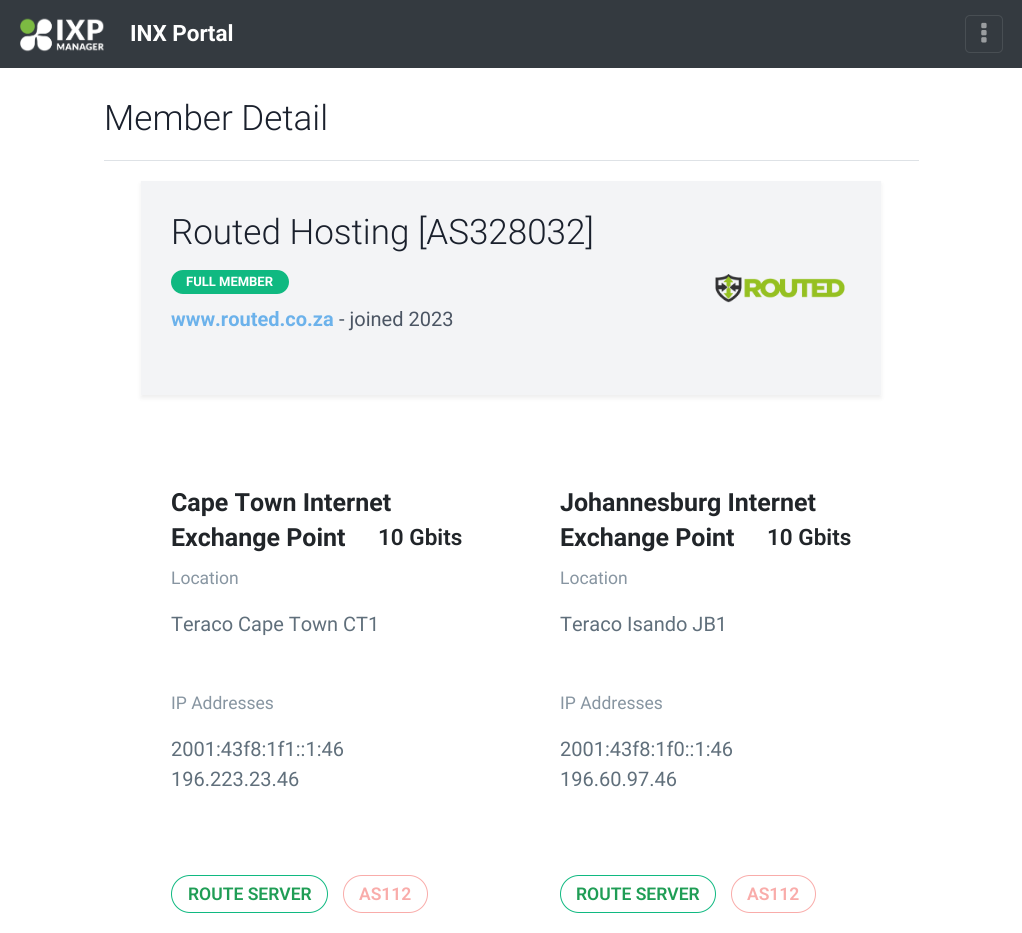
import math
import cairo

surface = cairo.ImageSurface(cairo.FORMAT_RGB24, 1022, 933)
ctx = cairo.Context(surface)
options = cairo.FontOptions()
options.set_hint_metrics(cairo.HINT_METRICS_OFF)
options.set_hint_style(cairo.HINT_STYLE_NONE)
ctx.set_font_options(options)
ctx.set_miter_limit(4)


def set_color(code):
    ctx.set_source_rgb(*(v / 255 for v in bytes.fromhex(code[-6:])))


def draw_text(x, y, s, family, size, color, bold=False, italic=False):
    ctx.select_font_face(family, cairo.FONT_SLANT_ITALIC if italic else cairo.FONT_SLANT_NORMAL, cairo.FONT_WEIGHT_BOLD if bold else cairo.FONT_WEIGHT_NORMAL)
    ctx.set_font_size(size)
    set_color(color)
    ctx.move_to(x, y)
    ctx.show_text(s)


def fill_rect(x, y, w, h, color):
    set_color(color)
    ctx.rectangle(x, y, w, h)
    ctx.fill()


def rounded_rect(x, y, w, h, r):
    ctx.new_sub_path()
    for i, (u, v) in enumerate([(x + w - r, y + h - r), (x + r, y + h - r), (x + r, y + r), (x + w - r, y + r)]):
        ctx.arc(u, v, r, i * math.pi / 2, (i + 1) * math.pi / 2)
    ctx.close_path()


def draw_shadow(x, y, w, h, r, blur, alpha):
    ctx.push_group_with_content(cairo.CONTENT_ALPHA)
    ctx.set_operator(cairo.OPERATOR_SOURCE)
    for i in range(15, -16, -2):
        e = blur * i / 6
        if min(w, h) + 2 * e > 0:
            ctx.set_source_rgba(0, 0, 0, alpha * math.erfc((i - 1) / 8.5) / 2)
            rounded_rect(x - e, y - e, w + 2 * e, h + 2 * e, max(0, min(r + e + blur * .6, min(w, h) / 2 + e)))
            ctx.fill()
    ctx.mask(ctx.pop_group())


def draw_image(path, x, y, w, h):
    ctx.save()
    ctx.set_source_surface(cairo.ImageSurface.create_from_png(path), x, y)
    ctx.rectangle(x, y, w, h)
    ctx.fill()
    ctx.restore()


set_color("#ffffff")
ctx.paint()
fill_rect(0, 0, 1022, 68, "#343a40")
draw_image("assets/img1.png", 20, 18, 84, 34)
draw_text(130, 41, "INX Portal", "Roboto", 22.5, "#ffffff", bold=True)
rounded_rect(965.5, 15.5, 37, 37, 4.5)
set_color("#484e53")
ctx.set_line_width(1)
ctx.stroke()
draw_image("assets/img2.png", 981, 22, 6, 21)
fill_rect(104, 160, 815, 1, "#dee2e6")
draw_text(104, 130, "Member Detail", "Roboto Light", 35, "#1a202c")
set_color("#000000")
draw_shadow(141, 184, 740, 214, 0, 2.5, 0.07)
fill_rect(141, 181, 740, 214, "#f3f4f6")
draw_text(171, 244, "Routed Hosting [AS328032]", "Roboto Light", 35, "#1a202c")
set_color("#10b981")
rounded_rect(171, 270, 118, 24, 12)
ctx.fill()
draw_text(186, 286, "FULL MEMBER", "Roboto", 13, "#ffffff", bold=True)
draw_text(171, 326, "www.routed.co.za", "Roboto", 20, "#6cb2eb", bold=True)
draw_text(339, 326, "- joined 2023", "Roboto", 20, "#4b5563")
draw_image("assets/img3.png", 715, 274, 130, 29)
draw_text(171, 511, "Cape Town Internet", "Roboto", 25, "#212529", bold=True)
draw_text(171, 546, "Exchange Point", "Roboto", 25, "#212529", bold=True)
draw_text(378, 545, "10 Gbits", "Roboto SemiBold", 22.5, "#212529")
draw_text(171, 584, "Location", "Roboto", 17.5, "#8795a1")
draw_text(171, 631, "Teraco Cape Town CT1", "Roboto", 20, "#606f7b")
draw_text(171, 709, "IP Addresses", "Roboto", 17.5, "#8795a1")
draw_text(171, 756, "2001:43f8:1f1::1:46", "Roboto", 20, "#606f7b")
draw_text(171, 786, "196.223.23.46", "Roboto", 20, "#606f7b")
rounded_rect(171.5, 875.5, 156, 37, 18.5)
set_color("#10b981")
ctx.stroke()
draw_text(188, 900, "ROUTE SERVER", "Roboto SemiBold", 17.5, "#1f9d55")
rounded_rect(343.5, 875.5, 84, 37, 18.5)
set_color("#f9acaa")
ctx.stroke()
draw_text(359, 900, "AS112", "Roboto SemiBold", 17.5, "#f9acaa")
draw_text(560, 511, "Johannesburg Internet", "Roboto", 25, "#212529", bold=True)
draw_text(560, 546, "Exchange Point", "Roboto", 25, "#212529", bold=True)
draw_text(767, 545, "10 Gbits", "Roboto SemiBold", 22.5, "#212529")
draw_text(560, 584, "Location", "Roboto", 17.5, "#8795a1")
draw_text(560, 631, "Teraco Isando JB1", "Roboto", 20, "#606f7b")
draw_text(560, 709, "IP Addresses", "Roboto", 17.5, "#8795a1")
draw_text(560, 756, "2001:43f8:1f0::1:46", "Roboto", 20, "#606f7b")
draw_text(560, 786, "196.60.97.46", "Roboto", 20, "#606f7b")
rounded_rect(560.5, 875.5, 155, 37, 18.5)
set_color("#10b981")
ctx.stroke()
draw_text(576, 900, "ROUTE SERVER", "Roboto SemiBold", 17.5, "#1f9d55")
rounded_rect(731.5, 875.5, 84, 37, 18.5)
set_color("#f9acaa")
ctx.stroke()
draw_text(747, 900, "AS112", "Roboto SemiBold", 17.5, "#f9acaa")
surface.write_to_png("output.png")
